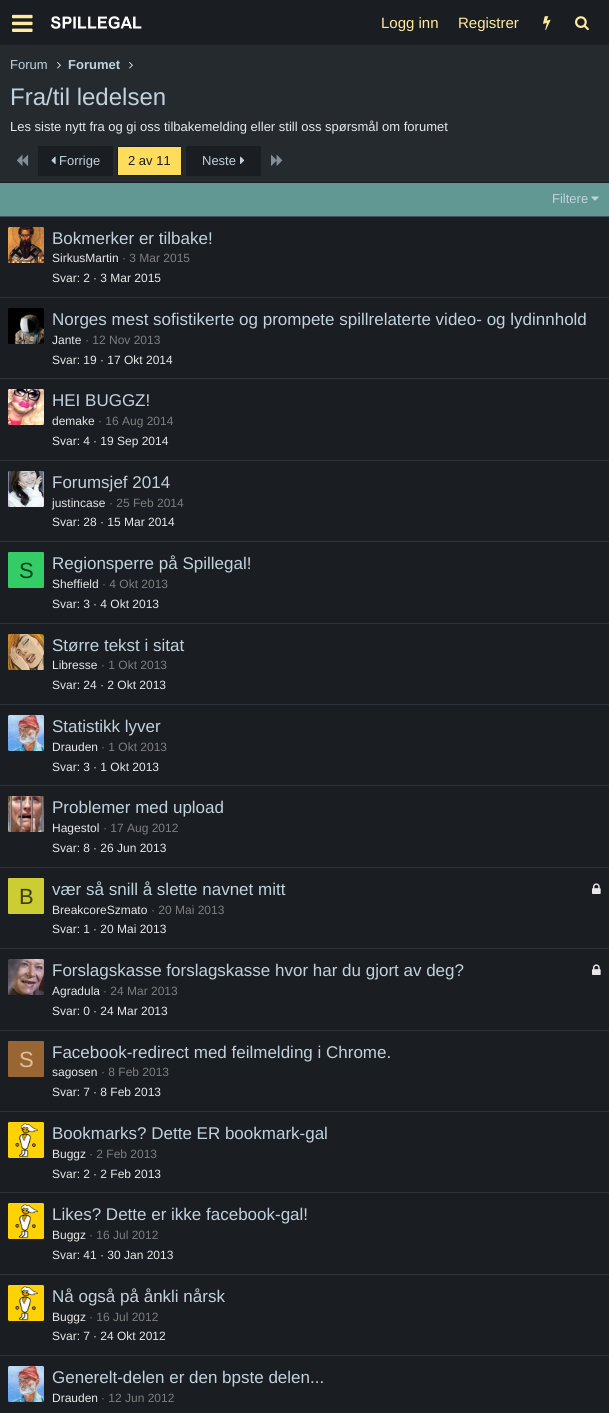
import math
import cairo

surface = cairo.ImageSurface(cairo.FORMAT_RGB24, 609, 1413)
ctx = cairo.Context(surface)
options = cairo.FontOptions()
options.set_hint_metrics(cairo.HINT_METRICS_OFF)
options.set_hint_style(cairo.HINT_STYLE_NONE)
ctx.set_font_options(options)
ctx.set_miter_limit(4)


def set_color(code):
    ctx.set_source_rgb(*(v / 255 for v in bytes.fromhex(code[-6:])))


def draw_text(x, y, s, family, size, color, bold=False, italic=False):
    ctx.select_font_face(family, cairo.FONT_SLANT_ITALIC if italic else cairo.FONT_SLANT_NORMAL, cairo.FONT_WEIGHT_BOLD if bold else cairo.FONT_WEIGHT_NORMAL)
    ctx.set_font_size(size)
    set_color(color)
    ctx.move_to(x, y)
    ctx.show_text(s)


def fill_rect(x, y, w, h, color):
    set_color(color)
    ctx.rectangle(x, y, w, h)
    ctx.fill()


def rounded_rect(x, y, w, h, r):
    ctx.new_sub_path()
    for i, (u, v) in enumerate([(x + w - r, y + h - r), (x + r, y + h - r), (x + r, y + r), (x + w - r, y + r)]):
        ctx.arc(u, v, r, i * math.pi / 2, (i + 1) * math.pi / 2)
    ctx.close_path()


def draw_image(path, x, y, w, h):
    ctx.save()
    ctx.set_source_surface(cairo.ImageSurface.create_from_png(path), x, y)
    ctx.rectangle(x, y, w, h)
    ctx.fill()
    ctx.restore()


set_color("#252a2f")
ctx.paint()
fill_rect(0, 0, 609, 45, "#1a1d21")
draw_image("assets/img1.png", 12, 14, 21, 18)
draw_image("assets/img2.png", 50, 16, 92, 13)
draw_text(381, 28, "Logg inn", "Liberation Sans", 15, "#ffeba0")
draw_text(458, 28, "Registrer", "Liberation Sans", 15, "#ffeba0")
draw_image("assets/img3.png", 543, 16, 8, 15)
draw_image("assets/img4.png", 575, 16, 14, 15)
draw_text(10, 69, "Forum", "Liberation Sans", 13, "#c2d2dc")
draw_image("assets/img5.png", 57, 62, 4, 7)
draw_text(68, 69, "Forumet", "Liberation Sans", 13, "#c2d2dc", bold=True)
draw_image("assets/img5.png", 129, 62, 4, 7)
draw_text(10, 105, "Fra/til ledelsen", "Liberation Sans", 24, "#c2d2dc")
draw_text(10, 131, "Les siste nytt fra og gi oss tilbakemelding eller still oss spørsmål om forumet", "Liberation Sans", 13, "#e8e8e8")
draw_image("assets/img6.png", 17, 154, 12, 12)
set_color("#1a1d21")
rounded_rect(38, 146, 75, 30, 1)
ctx.fill()
draw_image("assets/img7.png", 51, 156, 5, 8)
draw_text(59, 165, "Forrige", "Liberation Sans", 13, "#c2d2dc")
set_color("#ffdd5c")
rounded_rect(117.5, 146.5, 64, 29, 0.5)
ctx.fill_preserve()
set_color("#1a1d21")
ctx.set_line_width(1)
ctx.stroke()
draw_text(128, 165, "2 av 11", "Liberation Sans", 13, "#1a1d21")
rounded_rect(186, 146, 75, 30, 1)
ctx.fill()
draw_text(202, 165, "Neste", "Liberation Sans", 13, "#c2d2dc")
draw_image("assets/img8.png", 240, 156, 5, 8)
draw_image("assets/img9.png", 271, 154, 12, 12)
fill_rect(0, 182, 609, 1231, "#1a1d21")
fill_rect(0, 183, 609, 33, "#619894")
fill_rect(0, 216, 609, 1, "#474f5a")
draw_text(552, 203, "Filtere", "Liberation Sans", 13, "#c2d2dc")
draw_image("assets/img10.png", 591, 196, 8, 5)
draw_image("assets/img11.png", 8, 227, 36, 36)
draw_text(52, 244, "Bokmerker er tilbake!", "Liberation Sans", 17, "#c2d2dc")
draw_text(52, 262, "SirkusMartin", "Liberation Sans", 12, "#e8e8e8")
draw_text(122, 262, "· 3 Mar 2015", "Liberation Sans", 12, "#7e7e7e")
draw_text(52, 282, "Svar: 2", "Liberation Sans", 12, "#e8e8e8")
draw_text(93, 282, "· 3 Mar 2015", "Liberation Sans", 12, "#e8e8e8")
fill_rect(0, 297, 609, 1, "#2e343b")
draw_image("assets/img12.png", 8, 308, 36, 36)
draw_text(52, 325, "Norges mest sofistikerte og prompete spillrelaterte video- og lydinnhold", "Liberation Sans", 17, "#c2d2dc")
draw_text(52, 344, "Jante", "Liberation Sans", 12, "#e8e8e8")
draw_text(85, 344, "· 12 Nov 2013", "Liberation Sans", 12, "#7e7e7e")
draw_text(52, 364, "Svar: 19", "Liberation Sans", 12, "#e8e8e8")
draw_text(100, 364, "· 17 Okt 2014", "Liberation Sans", 12, "#e8e8e8")
fill_rect(0, 378, 609, 1, "#2e343b")
draw_image("assets/img13.png", 8, 389, 36, 36)
draw_text(52, 406, "HEI BUGGZ!", "Liberation Sans", 17, "#c2d2dc")
draw_text(52, 425, "demake", "Liberation Sans", 12, "#e8e8e8")
draw_text(98, 425, "· 16 Aug 2014", "Liberation Sans", 12, "#7e7e7e")
draw_text(52, 445, "Svar: 4", "Liberation Sans", 12, "#e8e8e8")
draw_text(93, 445, "· 19 Sep 2014", "Liberation Sans", 12, "#e8e8e8")
fill_rect(0, 460, 609, 1, "#2e343b")
draw_image("assets/img14.png", 8, 471, 36, 36)
draw_text(52, 488, "Forumsjef 2014", "Liberation Sans", 17, "#c2d2dc")
draw_text(52, 507, "justincase", "Liberation Sans", 12, "#e8e8e8")
draw_text(109, 507, "· 25 Feb 2014", "Liberation Sans", 12, "#7e7e7e")
draw_text(52, 526, "Svar: 28", "Liberation Sans", 12, "#e8e8e8")
draw_text(100, 526, "· 15 Mar 2014", "Liberation Sans", 12, "#e8e8e8")
fill_rect(0, 541, 609, 1, "#2e343b")
set_color("#33cc66")
rounded_rect(8, 552, 36, 36, 1)
ctx.fill()
draw_text(19, 578, "S", "Liberation Sans", 22, "#0f3d1f")
draw_text(52, 569, "Regionsperre på Spillegal!", "Liberation Sans", 17, "#c2d2dc")
draw_text(52, 588, "Sheffield", "Liberation Sans", 12, "#e8e8e8")
draw_text(102, 588, "· 4 Okt 2013", "Liberation Sans", 12, "#7e7e7e")
draw_text(52, 608, "Svar: 3", "Liberation Sans", 12, "#e8e8e8")
draw_text(93, 608, "· 4 Okt 2013", "Liberation Sans", 12, "#e8e8e8")
fill_rect(0, 623, 609, 1, "#2e343b")
draw_image("assets/img15.png", 8, 634, 36, 36)
draw_text(52, 651, "Større tekst i sitat", "Liberation Sans", 17, "#c2d2dc")
draw_text(52, 669, "Libresse", "Liberation Sans", 12, "#e8e8e8")
draw_text(101, 669, "· 1 Okt 2013", "Liberation Sans", 12, "#7e7e7e")
draw_text(52, 689, "Svar: 24", "Liberation Sans", 12, "#e8e8e8")
draw_text(100, 689, "· 2 Okt 2013", "Liberation Sans", 12, "#e8e8e8")
fill_rect(0, 704, 609, 1, "#2e343b")
draw_image("assets/img16.png", 8, 715, 36, 36)
draw_text(52, 732, "Statistikk lyver", "Liberation Sans", 17, "#c2d2dc")
draw_text(52, 751, "Drauden", "Liberation Sans", 12, "#e8e8e8")
draw_text(101, 751, "· 1 Okt 2013", "Liberation Sans", 12, "#7e7e7e")
draw_text(52, 771, "Svar: 3", "Liberation Sans", 12, "#e8e8e8")
draw_text(93, 771, "· 1 Okt 2013", "Liberation Sans", 12, "#e8e8e8")
fill_rect(0, 785, 609, 1, "#2e343b")
draw_image("assets/img17.png", 8, 796, 36, 36)
draw_text(52, 813, "Problemer med upload", "Liberation Sans", 17, "#c2d2dc")
draw_text(52, 832, "Hagestol", "Liberation Sans", 12, "#e8e8e8")
draw_text(103, 832, "· 17 Aug 2012", "Liberation Sans", 12, "#7e7e7e")
draw_text(52, 852, "Svar: 8", "Liberation Sans", 12, "#e8e8e8")
draw_text(93, 852, "· 26 Jun 2013", "Liberation Sans", 12, "#e8e8e8")
fill_rect(0, 867, 609, 1, "#2e343b")
set_color("#cccc33")
rounded_rect(8, 878, 36, 36, 1)
ctx.fill()
draw_text(19, 904, "B", "Liberation Sans", 22, "#3d3d0f")
draw_text(52, 895, "vær så snill å slette navnet mitt", "Liberation Sans", 17, "#c2d2dc")
draw_image("assets/img18.png", 592, 883, 9, 11)
draw_text(52, 914, "BreakcoreSzmato", "Liberation Sans", 12, "#e8e8e8")
draw_text(151, 914, "· 20 Mai 2013", "Liberation Sans", 12, "#7e7e7e")
draw_text(52, 933, "Svar: 1", "Liberation Sans", 12, "#e8e8e8")
draw_text(93, 933, "· 20 Mai 2013", "Liberation Sans", 12, "#e8e8e8")
fill_rect(0, 948, 609, 1, "#2e343b")
draw_image("assets/img19.png", 8, 959, 36, 36)
draw_text(52, 976, "Forslagskasse forslagskasse hvor har du gjort av deg?", "Liberation Sans", 17, "#c2d2dc")
draw_image("assets/img18.png", 592, 964, 9, 11)
draw_text(52, 995, "Agradula", "Liberation Sans", 12, "#e8e8e8")
draw_text(103, 995, "· 24 Mar 2013", "Liberation Sans", 12, "#7e7e7e")
draw_text(52, 1015, "Svar: 0", "Liberation Sans", 12, "#e8e8e8")
draw_text(93, 1015, "· 24 Mar 2013", "Liberation Sans", 12, "#e8e8e8")
fill_rect(0, 1030, 609, 1, "#2e343b")
set_color("#996633")
rounded_rect(8, 1041, 36, 36, 1)
ctx.fill()
draw_text(19, 1067, "S", "Liberation Sans", 22, "#dfbf9f")
draw_text(52, 1058, "Facebook-redirect med feilmelding i Chrome.", "Liberation Sans", 17, "#c2d2dc")
draw_text(52, 1076, "sagosen", "Liberation Sans", 12, "#e8e8e8")
draw_text(101, 1076, "· 8 Feb 2013", "Liberation Sans", 12, "#7e7e7e")
draw_text(52, 1096, "Svar: 7", "Liberation Sans", 12, "#e8e8e8")
draw_text(93, 1096, "· 8 Feb 2013", "Liberation Sans", 12, "#e8e8e8")
fill_rect(0, 1111, 609, 1, "#2e343b")
draw_image("assets/img20.png", 8, 1122, 36, 36)
draw_text(52, 1139, "Bookmarks? Dette ER bookmark-gal", "Liberation Sans", 17, "#c2d2dc")
draw_text(52, 1158, "Buggz", "Liberation Sans", 12, "#e8e8e8")
draw_text(89, 1158, "· 2 Feb 2013", "Liberation Sans", 12, "#7e7e7e")
draw_text(52, 1178, "Svar: 2", "Liberation Sans", 12, "#e8e8e8")
draw_text(93, 1178, "· 2 Feb 2013", "Liberation Sans", 12, "#e8e8e8")
fill_rect(0, 1192, 609, 1, "#2e343b")
draw_image("assets/img20.png", 8, 1203, 36, 36)
draw_text(52, 1220, "Likes? Dette er ikke facebook-gal!", "Liberation Sans", 17, "#c2d2dc")
draw_text(52, 1239, "Buggz", "Liberation Sans", 12, "#e8e8e8")
draw_text(89, 1239, "· 16 Jul 2012", "Liberation Sans", 12, "#7e7e7e")
draw_text(52, 1259, "Svar: 41", "Liberation Sans", 12, "#e8e8e8")
draw_text(100, 1259, "· 30 Jan 2013", "Liberation Sans", 12, "#e8e8e8")
fill_rect(0, 1274, 609, 1, "#2e343b")
draw_image("assets/img20.png", 8, 1285, 36, 36)
draw_text(52, 1302, "Nå også på ånkli nårsk", "Liberation Sans", 17, "#c2d2dc")
draw_text(52, 1321, "Buggz", "Liberation Sans", 12, "#e8e8e8")
draw_text(89, 1321, "· 16 Jul 2012", "Liberation Sans", 12, "#7e7e7e")
draw_text(52, 1340, "Svar: 7", "Liberation Sans", 12, "#e8e8e8")
draw_text(93, 1340, "· 24 Okt 2012", "Liberation Sans", 12, "#e8e8e8")
fill_rect(0, 1355, 609, 1, "#2e343b")
draw_image("assets/img16.png", 8, 1366, 36, 36)
draw_text(52, 1383, "Generelt-delen er den bpste delen...", "Liberation Sans", 17, "#c2d2dc")
draw_text(52, 1402, "Drauden", "Liberation Sans", 12, "#e8e8e8")
draw_text(101, 1402, "· 12 Jun 2012", "Liberation Sans", 12, "#7e7e7e")
surface.write_to_png("output.png")
